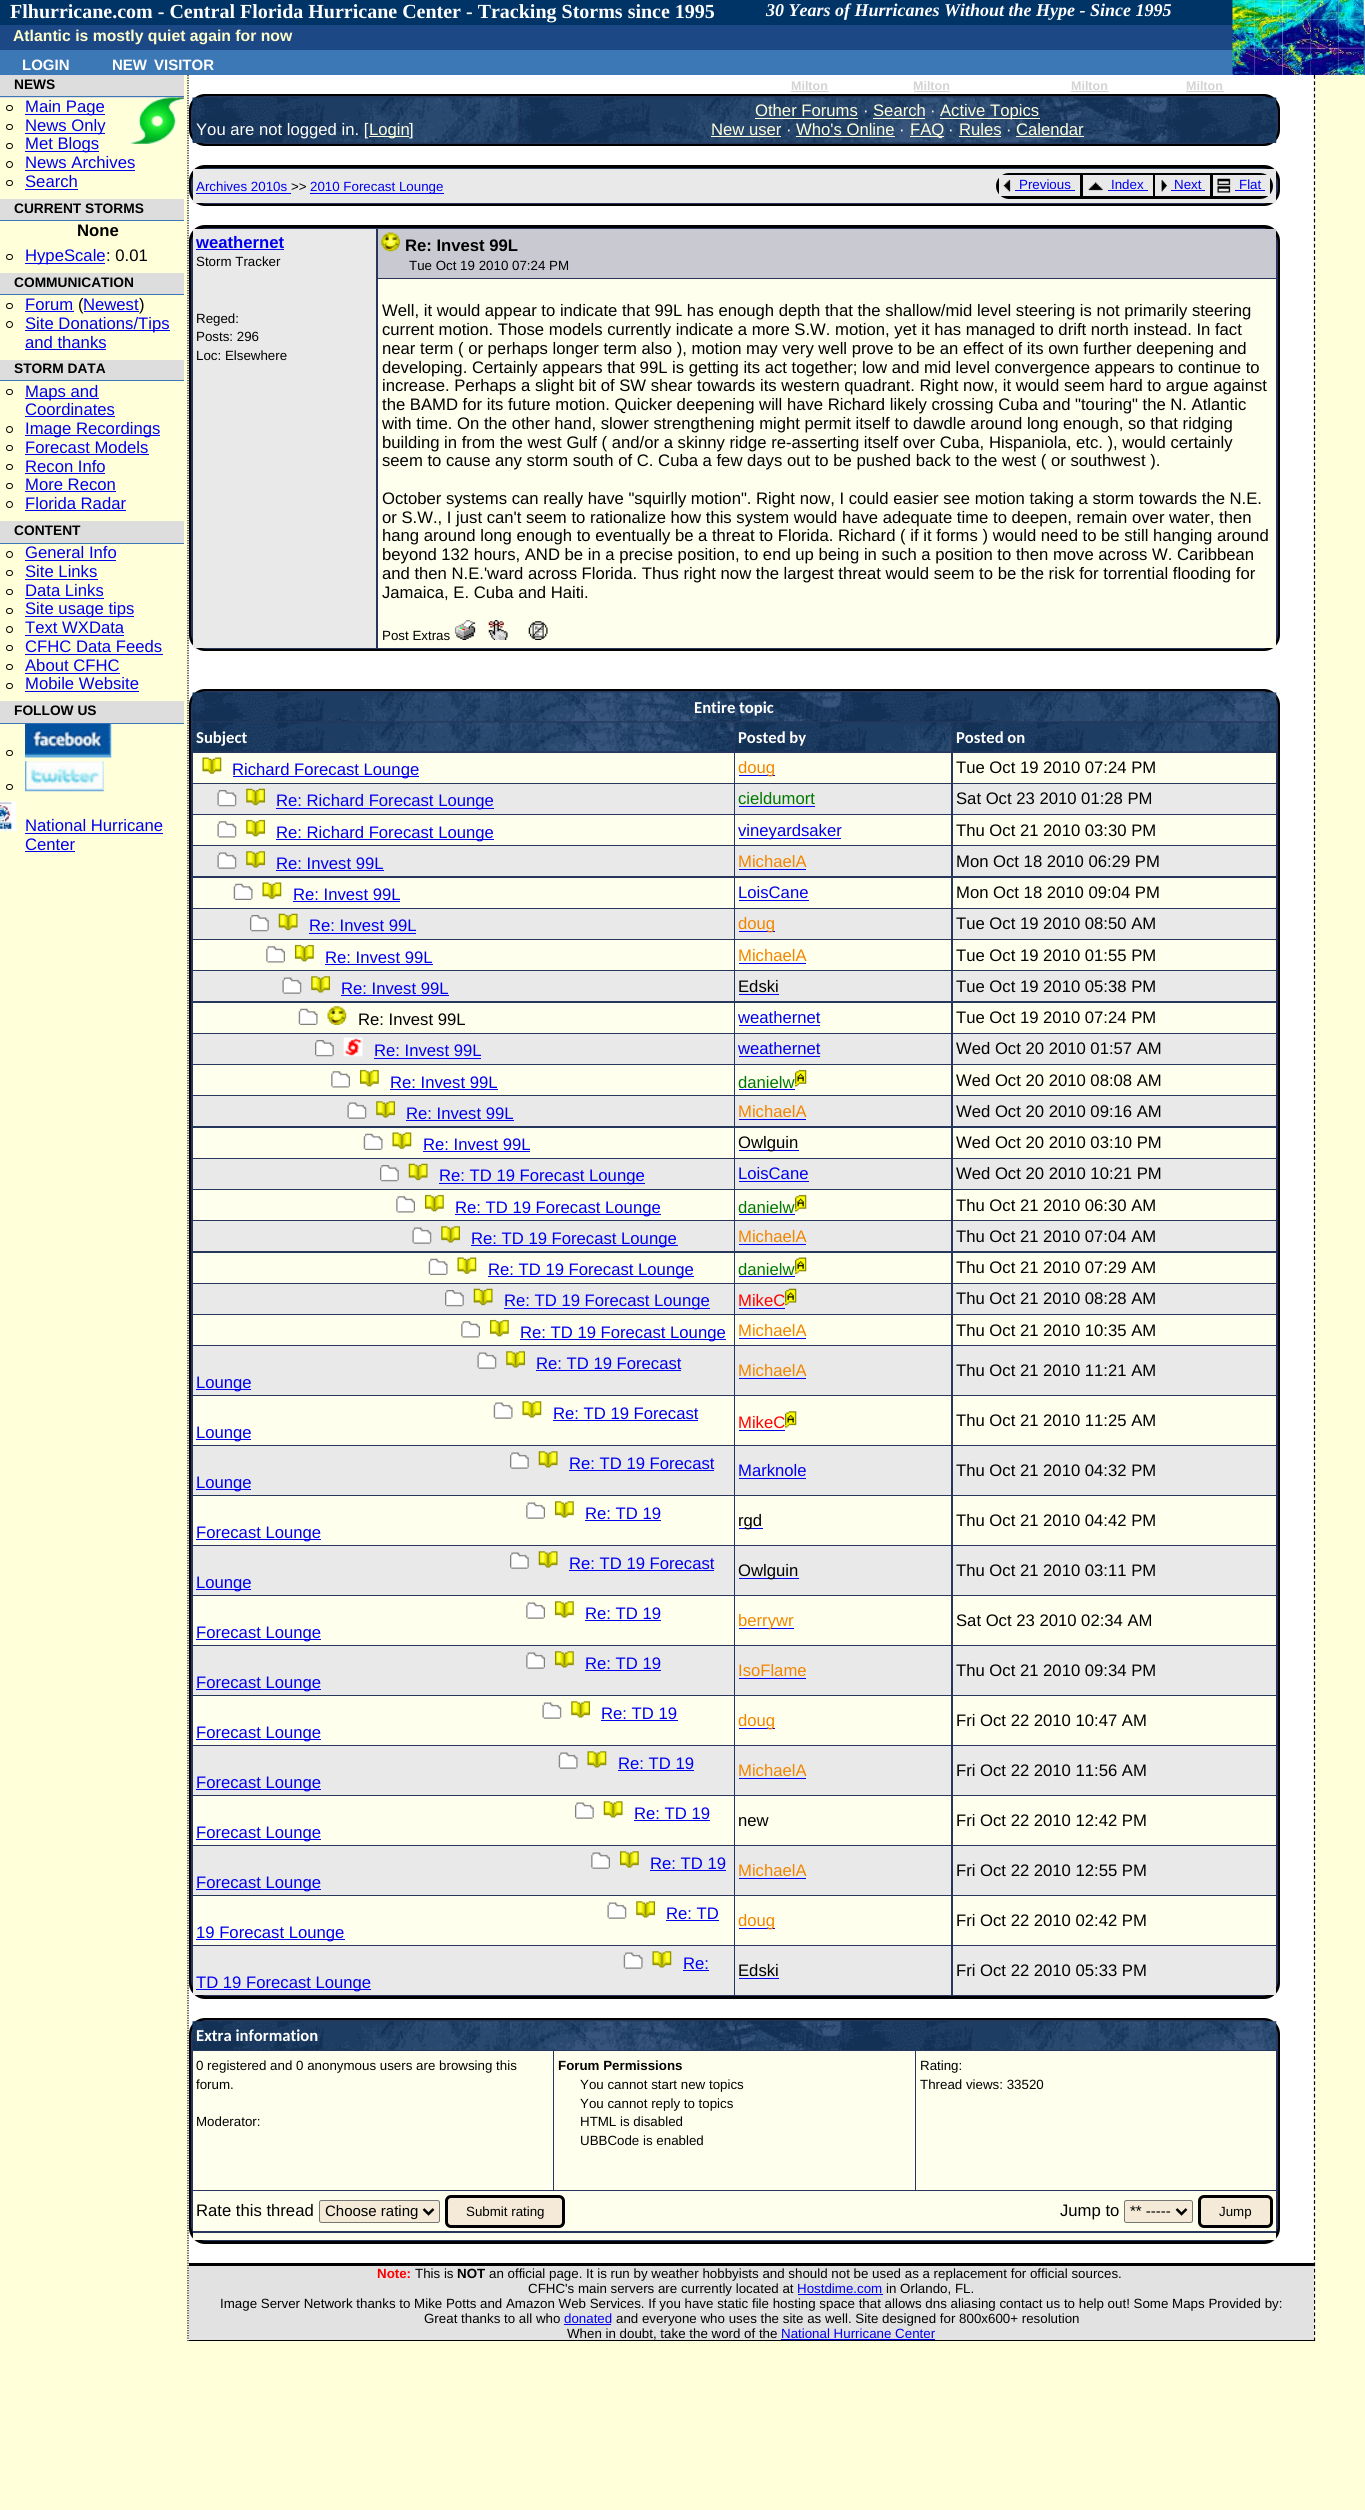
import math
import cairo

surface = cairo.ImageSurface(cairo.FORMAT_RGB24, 1365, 2510)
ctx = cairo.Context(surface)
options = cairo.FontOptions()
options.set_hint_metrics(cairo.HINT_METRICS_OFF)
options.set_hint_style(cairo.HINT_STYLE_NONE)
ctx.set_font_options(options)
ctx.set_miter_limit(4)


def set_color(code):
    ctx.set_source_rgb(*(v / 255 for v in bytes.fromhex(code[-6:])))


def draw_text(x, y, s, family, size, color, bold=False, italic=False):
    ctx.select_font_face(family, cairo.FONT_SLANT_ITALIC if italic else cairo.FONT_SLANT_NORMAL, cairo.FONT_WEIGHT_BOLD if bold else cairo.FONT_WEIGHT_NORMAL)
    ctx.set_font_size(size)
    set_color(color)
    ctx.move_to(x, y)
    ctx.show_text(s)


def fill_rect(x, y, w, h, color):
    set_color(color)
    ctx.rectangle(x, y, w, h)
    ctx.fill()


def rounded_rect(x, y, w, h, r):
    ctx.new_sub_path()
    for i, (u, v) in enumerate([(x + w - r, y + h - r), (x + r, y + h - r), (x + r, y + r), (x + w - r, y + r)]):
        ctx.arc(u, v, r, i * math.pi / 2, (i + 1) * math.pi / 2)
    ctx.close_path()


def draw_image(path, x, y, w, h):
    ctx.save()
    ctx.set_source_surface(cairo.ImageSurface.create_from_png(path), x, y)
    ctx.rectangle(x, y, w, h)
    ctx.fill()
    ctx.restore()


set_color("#ffffda")
ctx.paint()
fill_rect(0, 0, 1233, 25, "#003366")
draw_text(10, 18, "Flhurricane.com - Central Florida Hurricane Center - Tracking Storms since 1995", "Liberation Serif", 20, "#ffffff", bold=True)
draw_text(766, 16, "30 Years of Hurricanes Without the Hype - Since 1995", "Liberation Serif", 18, "#ffffff", bold=True, italic=True)
fill_rect(0, 25, 1365, 25, "#1c4885")
fill_rect(0, 50, 1365, 25, "#3c78b5")
draw_image("assets/img1.png", 1232, 0, 132, 75)
draw_text(13, 41, "Atlantic is mostly quiet again for now", "Liberation Sans", 15.75, "#ffffcc", bold=True)
fill_rect(188, 75, 1127, 2266, "#ffffff")
draw_text(791, 90, "Milton", "Liberation Sans", 12.5, "#d3d3d3", bold=True)
fill_rect(791, 91, 38, 1, "#d3d3d3")
draw_text(913, 90, "Milton", "Liberation Sans", 12.5, "#d3d3d3", bold=True)
fill_rect(914, 91, 36, 1, "#d3d3d3")
draw_text(1071, 90, "Milton", "Liberation Sans", 12.5, "#d3d3d3", bold=True)
fill_rect(1071, 91, 38, 1, "#d3d3d3")
draw_text(1186, 90, "Milton", "Liberation Sans", 12.5, "#d3d3d3", bold=True)
fill_rect(1186, 91, 38, 1, "#d3d3d3")
draw_text(22, 70, "LOGIN", "Liberation Sans", 15, "#ffffff", bold=True)
draw_text(112, 70, "NEW", "Liberation Sans", 15, "#ffffff", bold=True)
draw_text(154, 70, "VISITOR", "Liberation Sans", 15, "#ffffff", bold=True)
fill_rect(0, 75, 184, 23, "#dddddd")
fill_rect(0, 96, 184, 1, "#3c78b5")
draw_text(14, 89, "NEWS", "Liberation Sans", 13.75, "#000000", bold=True)
draw_image("assets/img2.png", 130, 97, 54, 47)
rounded_rect(6.5, 105.5, 6, 5, 2.5)
ctx.set_line_width(1)
ctx.stroke()
fill_rect(25, 114, 80, 1, "#0000ee")
draw_text(25, 112, "Main Page", "Liberation Sans", 16.67, "#0000ee")
rounded_rect(6.5, 124.5, 6, 5, 2.5)
set_color("#000000")
ctx.stroke()
fill_rect(25, 133, 80, 1, "#0000ee")
draw_text(25, 131, "News Only", "Liberation Sans", 16.67, "#0000ee")
rounded_rect(6.5, 143.5, 6, 5, 2.5)
set_color("#000000")
ctx.stroke()
fill_rect(25, 151, 74, 1, "#0000ee")
draw_text(25, 149, "Met Blogs", "Liberation Sans", 16.67, "#0000ee")
ctx.new_path()
ctx.arc(9.5, 164.5, 3, 0, 2 * math.pi)
set_color("#000000")
ctx.stroke()
draw_text(25, 168, "News Archives", "Liberation Sans", 16.67, "#0000ee")
fill_rect(25, 170, 110, 1, "#0000ee")
rounded_rect(6.5, 180.5, 6, 5, 2.5)
set_color("#000000")
ctx.stroke()
draw_text(25, 187, "Search", "Liberation Sans", 16.67, "#0000ee")
fill_rect(25, 189, 53, 1, "#0000ee")
fill_rect(0, 199, 184, 21, "#dddddd")
fill_rect(0, 220, 184, 1, "#3c78b5")
draw_text(14, 213, "CURRENT STORMS", "Liberation Sans", 13.75, "#000000", bold=True)
draw_text(77, 236, "None", "Liberation Sans", 16.67, "#000000", bold=True)
rounded_rect(6.5, 254.5, 6, 5, 2.5)
ctx.stroke()
fill_rect(25, 263, 80, 1, "#0000ee")
draw_text(25, 261, "HypeScale", "Liberation Sans", 16.67, "#0000ee")
draw_text(106, 261, ": 0.01", "Liberation Sans", 16.67, "#000000")
fill_rect(0, 273, 184, 21, "#dddddd")
fill_rect(0, 294, 184, 1, "#3c78b5")
draw_text(14, 287, "COMMUNICATION", "Liberation Sans", 13.75, "#000000", bold=True)
rounded_rect(6.5, 303.5, 6, 5, 2.5)
ctx.stroke()
draw_text(25, 310, "Forum", "Liberation Sans", 16.67, "#0000ee")
fill_rect(25, 311, 49, 1, "#0000ee")
draw_text(78, 310, "(", "Liberation Sans", 16.67, "#000000")
draw_text(83, 310, "Newest", "Liberation Sans", 16.67, "#0000ee")
fill_rect(84, 311, 55, 1, "#0000ee")
draw_text(139, 310, ")", "Liberation Sans", 16.67, "#000000")
ctx.new_path()
ctx.arc(9.5, 324.5, 3, 0, 2 * math.pi)
ctx.stroke()
fill_rect(25, 330, 145, 1, "#0000ee")
draw_text(25, 329, "Site Donations/Tips", "Liberation Sans", 16.67, "#0000ee")
draw_text(25, 348, "and thanks", "Liberation Sans", 16.67, "#0000ee")
fill_rect(25, 349, 81, 1, "#0000ee")
fill_rect(0, 360, 184, 20, "#dddddd")
fill_rect(0, 380, 184, 1, "#3c78b5")
draw_text(14, 373, "STORM DATA", "Liberation Sans", 13.75, "#000000", bold=True)
rounded_rect(6.5, 389.5, 6, 5, 2.5)
ctx.stroke()
fill_rect(25, 398, 74, 1, "#0000ee")
draw_text(25, 397, "Maps and", "Liberation Sans", 16.67, "#0000ee")
draw_text(25, 415, "Coordinates", "Liberation Sans", 16.67, "#0000ee")
fill_rect(25, 416, 90, 1, "#0000ee")
ctx.new_path()
ctx.arc(9.5, 429.5, 3, 0, 2 * math.pi)
set_color("#000000")
ctx.stroke()
fill_rect(25, 435, 135, 1, "#0000ee")
draw_text(25, 434, "Image Recordings", "Liberation Sans", 16.67, "#0000ee")
rounded_rect(6.5, 445.5, 6, 5, 2.5)
set_color("#000000")
ctx.stroke()
draw_text(25, 453, "Forecast Models", "Liberation Sans", 16.67, "#0000ee")
fill_rect(25, 454, 124, 1, "#0000ee")
rounded_rect(6.5, 464.5, 6, 5, 2.5)
set_color("#000000")
ctx.stroke()
draw_text(25, 472, "Recon Info", "Liberation Sans", 16.67, "#0000ee")
fill_rect(25, 473, 80, 1, "#0000ee")
rounded_rect(6.5, 483.5, 6, 5, 2.5)
set_color("#000000")
ctx.stroke()
draw_text(25, 490, "More Recon", "Liberation Sans", 16.67, "#0000ee")
fill_rect(25, 491, 91, 1, "#0000ee")
ctx.new_path()
ctx.arc(9.5, 504.5, 3, 0, 2 * math.pi)
set_color("#000000")
ctx.stroke()
draw_text(25, 509, "Florida Radar", "Liberation Sans", 16.67, "#0000ee")
fill_rect(25, 510, 101, 1, "#0000ee")
fill_rect(0, 521, 184, 22, "#dddddd")
fill_rect(0, 543, 184, 1, "#3c78b5")
draw_text(14, 535, "CONTENT", "Liberation Sans", 13.75, "#000000", bold=True)
ctx.new_path()
ctx.arc(9.5, 554.5, 3, 0, 2 * math.pi)
ctx.stroke()
draw_text(25, 558, "General Info", "Liberation Sans", 16.67, "#0000ee")
fill_rect(25, 560, 91, 1, "#0000ee")
rounded_rect(6.5, 570.5, 6, 5, 2.5)
set_color("#000000")
ctx.stroke()
draw_text(25, 577, "Site Links", "Liberation Sans", 16.67, "#0000ee")
fill_rect(25, 579, 73, 1, "#0000ee")
rounded_rect(6.5, 589.5, 6, 5, 2.5)
set_color("#000000")
ctx.stroke()
draw_text(25, 596, "Data Links", "Liberation Sans", 16.67, "#0000ee")
fill_rect(25, 598, 79, 1, "#0000ee")
rounded_rect(6.5, 608.5, 6, 5, 2.5)
set_color("#000000")
ctx.stroke()
fill_rect(25, 616, 109, 1, "#0000ee")
draw_text(25, 614, "Site usage tips", "Liberation Sans", 16.67, "#0000ee")
ctx.new_path()
ctx.arc(9.5, 629.5, 3, 0, 2 * math.pi)
set_color("#000000")
ctx.stroke()
draw_text(25, 633, "Text WXData", "Liberation Sans", 16.67, "#0000ee")
fill_rect(25, 635, 99, 1, "#0000ee")
rounded_rect(6.5, 645.5, 6, 5, 2.5)
set_color("#000000")
ctx.stroke()
draw_text(25, 652, "CFHC Data Feeds", "Liberation Sans", 16.67, "#0000ee")
fill_rect(25, 654, 138, 1, "#0000ee")
rounded_rect(6.5, 664.5, 6, 5, 2.5)
set_color("#000000")
ctx.stroke()
draw_text(25, 671, "About CFHC", "Liberation Sans", 16.67, "#0000ee")
fill_rect(25, 673, 95, 1, "#0000ee")
rounded_rect(6.5, 683.5, 6, 5, 2.5)
set_color("#000000")
ctx.stroke()
draw_text(25, 689, "Mobile Website", "Liberation Sans", 16.67, "#0000ee")
fill_rect(25, 691, 114, 1, "#0000ee")
fill_rect(0, 701, 184, 22, "#dddddd")
fill_rect(0, 723, 184, 1, "#3c78b5")
draw_text(14, 715, "FOLLOW US", "Liberation Sans", 13.75, "#000000", bold=True)
rounded_rect(6.5, 750.5, 6, 5, 2.5)
ctx.stroke()
draw_image("assets/img3.png", 25, 723, 87, 35)
rounded_rect(6.5, 784.5, 6, 5, 2.5)
ctx.stroke()
draw_image("assets/img4.png", 25, 761, 79, 31)
draw_image("assets/img5.png", 0, 801, 17, 31)
draw_text(25, 831, "National Hurricane", "Liberation Sans", 16.67, "#0000ee")
fill_rect(25, 833, 138, 1, "#0000ee")
draw_text(25, 850, "Center", "Liberation Sans", 16.67, "#0000ee")
fill_rect(25, 851, 50, 1, "#0000ee")
ctx.new_path()
ctx.move_to(1314.5, 75)
ctx.line_to(1314.5, 2341)
set_color("#000000")
ctx.set_line_width(1.2)
ctx.set_dash([3.75, 2.5])
ctx.stroke()
ctx.new_path()
ctx.move_to(188, 75)
ctx.line_to(188, 2341)
ctx.set_dash([1.25, 1.25])
ctx.stroke()
rounded_rect(189, 94, 1091, 52, 16)
ctx.fill()
set_color("#26375b")
rounded_rect(191, 96, 1087, 48, 16)
ctx.fill()
fill_rect(193, 98, 9, 45, "#26375b")
draw_image("assets/img6.png", 192, 97, 326, 46)
draw_text(196, 135, "You are not logged in. [", "Liberation Sans", 16.67, "#ffffff")
fill_rect(369, 136, 40, 1, "#feffdf")
draw_text(369, 135, "Login", "Liberation Sans", 16.67, "#feffdf")
draw_text(409, 135, "]", "Liberation Sans", 16.67, "#ffffff")
fill_rect(1267, 142, 9, 1, "#26375b")
draw_image("assets/img7.png", 518, 97, 759, 46)
draw_text(755, 116, "Other Forums", "Liberation Sans", 16.67, "#feffdf")
fill_rect(755, 118, 103, 1, "#feffdf")
draw_text(863, 116, "·", "Liberation Sans", 16.67, "#ffffff")
draw_text(873, 116, "Search", "Liberation Sans", 16.67, "#feffdf")
fill_rect(873, 118, 52, 1, "#feffdf")
draw_text(930, 116, "·", "Liberation Sans", 16.67, "#ffffff")
fill_rect(940, 118, 100, 1, "#feffdf")
draw_text(940, 116, "Active Topics", "Liberation Sans", 16.67, "#feffdf")
draw_text(711, 135, "New user", "Liberation Sans", 16.67, "#feffdf")
fill_rect(711, 136, 70, 1, "#feffdf")
draw_text(786, 135, "·", "Liberation Sans", 16.67, "#ffffff")
draw_text(796, 135, "Who's Online", "Liberation Sans", 16.67, "#feffdf")
fill_rect(796, 136, 99, 1, "#feffdf")
draw_text(899, 135, "·", "Liberation Sans", 16.67, "#ffffff")
fill_rect(910, 136, 34, 1, "#feffdf")
draw_text(910, 135, "FAQ", "Liberation Sans", 16.67, "#feffdf")
draw_text(948, 135, "·", "Liberation Sans", 16.67, "#ffffff")
draw_text(959, 135, "Rules", "Liberation Sans", 16.67, "#feffdf")
fill_rect(959, 136, 42, 1, "#feffdf")
draw_text(1006, 135, "·", "Liberation Sans", 16.67, "#ffffff")
draw_text(1016, 135, "Calendar", "Liberation Sans", 16.67, "#feffdf")
fill_rect(1016, 136, 68, 1, "#feffdf")
set_color("#000000")
rounded_rect(189, 165, 1091, 41, 16)
ctx.fill()
set_color("#26375b")
rounded_rect(191, 168, 1087, 36, 16)
ctx.fill()
fill_rect(193, 169, 1083, 34, "#e9e9e9")
draw_text(196, 191, "Archives 2010s", "Liberation Sans", 13.33, "#0000ee")
fill_rect(196, 193, 95, 1, "#0000ee")
draw_text(291, 191, ">>", "Liberation Sans", 13.33, "#000000")
fill_rect(310, 193, 134, 1, "#0000ee")
draw_text(310, 191, "2010 Forecast Lounge", "Liberation Sans", 13.33, "#0000ee")
set_color("#000000")
rounded_rect(996, 173, 277, 26, 13)
ctx.fill()
fill_rect(999, 175, 81, 21, "#e9e9e9")
draw_image("assets/img8.png", 1003, 179, 8, 13)
draw_text(1019, 189, "Previous", "Liberation Sans", 13.33, "#0000ee")
fill_rect(1015, 190, 60, 1, "#0000ee")
fill_rect(1083, 175, 70, 21, "#e9e9e9")
draw_image("assets/img9.png", 1088, 182, 15, 9)
draw_text(1111, 189, "Index", "Liberation Sans", 13.33, "#0000ee")
fill_rect(1108, 190, 40, 1, "#0000ee")
fill_rect(1155, 175, 55, 21, "#e9e9e9")
draw_image("assets/img10.png", 1161, 179, 6, 13)
draw_text(1174, 189, "Next", "Liberation Sans", 13.33, "#0000ee")
fill_rect(1171, 190, 34, 1, "#0000ee")
fill_rect(1213, 175, 57, 21, "#e9e9e9")
draw_image("assets/img11.png", 1217, 178, 14, 15)
draw_text(1239, 189, "Flat", "Liberation Sans", 13.33, "#0000ee")
fill_rect(1235, 190, 30, 1, "#0000ee")
set_color("#000000")
rounded_rect(189, 225, 1091, 426, 16)
ctx.fill()
set_color("#26375b")
rounded_rect(191, 228, 1087, 421, 16)
ctx.fill()
fill_rect(193, 229, 183, 419, "#e9e9e9")
draw_text(196, 248, "weathernet", "Liberation Sans", 16.67, "#0000ee", bold=True)
fill_rect(196, 249, 88, 1, "#0000ee")
draw_text(196, 266, "Storm Tracker", "Liberation Sans", 13.33, "#000000")
draw_text(196, 323, "Reged:", "Liberation Sans", 13.33, "#000000")
draw_text(196, 341, "Posts: 296", "Liberation Sans", 13.33, "#000000")
draw_text(196, 360, "Loc: Elsewhere", "Liberation Sans", 13.33, "#000000")
fill_rect(378, 229, 898, 49, "#c9c9d2")
draw_image("assets/img12.png", 381, 232, 19, 20)
draw_text(405, 251, "Re: Invest 99L", "Liberation Sans", 16.67, "#000000", bold=True)
draw_text(409, 270, "Tue Oct 19 2010 07:24 PM", "Liberation Sans", 13.33, "#000000")
fill_rect(378, 279, 898, 369, "#ffffee")
draw_text(382, 316, "Well, it would appear to indicate that 99L has enough depth that the shallow/mid level steering is not primarily steering", "Liberation Sans", 16.67, "#000000")
draw_text(382, 335, "current motion. Those models currently indicate a more S.W. motion, yet it has managed to drift north instead. In fact", "Liberation Sans", 16.67, "#000000")
draw_text(382, 354, "near term ( or perhaps longer term also ), motion may very well prove to be an effect of its own further deepening and", "Liberation Sans", 16.67, "#000000")
draw_text(382, 373, "developing. Certainly appears that 99L is getting its act together; low and mid level convergence appears to continue to", "Liberation Sans", 16.67, "#000000")
draw_text(382, 391, "increase. Perhaps a slight bit of SW shear towards its western quadrant. Right now, it would seem hard to argue against", "Liberation Sans", 16.67, "#000000")
draw_text(382, 410, "the BAMD for its future motion. Quicker deepening will have Richard likely crossing Cuba and \"touring\" the N. Atlantic", "Liberation Sans", 16.67, "#000000")
draw_text(382, 429, "with time. On the other hand, slower strengthening might permit itself to dawdle around long enough, so that ridging", "Liberation Sans", 16.67, "#000000")
draw_text(382, 448, "building in from the west Gulf ( and/or a skinny ridge re-asserting itself over Cuba, Hispaniola, etc. ), would certainly", "Liberation Sans", 16.67, "#000000")
draw_text(382, 466, "seem to cause any storm south of C. Cuba a few days out to be pushed back to the west ( or southwest ).", "Liberation Sans", 16.67, "#000000")
draw_text(382, 504, "October systems can really have \"squirlly motion\". Right now, I could easier see motion taking a storm towards the N.E.", "Liberation Sans", 16.67, "#000000")
draw_text(382, 523, "or S.W., I just can't seem to rationalize how this system would have adequate time to deepen, remain over water, then", "Liberation Sans", 16.67, "#000000")
draw_text(382, 541, "hang around long enough to eventually be a threat to Florida. Richard ( if it forms ) would need to be still hanging around", "Liberation Sans", 16.67, "#000000")
draw_text(382, 560, "beyond 132 hours, AND be in a precise position, to end up being in such a position to then move across W. Caribbean", "Liberation Sans", 16.67, "#000000")
draw_text(382, 579, "and then N.E.'ward across Florida. Thus right now the largest threat would seem to be the risk for torrential flooding for", "Liberation Sans", 16.67, "#000000")
draw_text(382, 598, "Jamaica, E. Cuba and Haiti.", "Liberation Sans", 16.67, "#000000")
draw_text(382, 640, "Post Extras", "Liberation Sans", 13.33, "#000000")
draw_image("assets/img13.png", 454, 620, 22, 20)
draw_image("assets/img14.png", 488, 620, 20, 20)
draw_image("assets/img15.png", 528, 621, 20, 19)
rounded_rect(189, 689, 1091, 1310, 16)
ctx.fill()
set_color("#26375b")
rounded_rect(191, 691, 1087, 1305, 16)
ctx.fill()
draw_image("assets/img16.png", 192, 692, 1085, 30)
draw_text(694, 713, "Entire topic", "Carlito", 16.67, "#ffffff", bold=True)
draw_image("assets/img17.png", 192, 722, 542, 30)
draw_text(196, 743, "Subject", "Carlito", 16.67, "#ffffff", bold=True)
draw_image("assets/img18.png", 735, 722, 217, 30)
draw_text(738, 743, "Posted by", "Carlito", 16.67, "#ffffff", bold=True)
draw_image("assets/img19.png", 952, 722, 325, 30)
draw_text(956, 743, "Posted on", "Carlito", 16.67, "#ffffff", bold=True)
fill_rect(193, 753, 541, 30, "#ffffee")
draw_image("assets/img20.png", 202, 757, 20, 17)
fill_rect(233, 776, 186, 1, "#0000ee")
draw_text(232, 775, "Richard Forecast Lounge", "Liberation Sans", 16.67, "#0000ee")
fill_rect(735, 753, 216, 30, "#ffffee")
fill_rect(739, 775, 36, 1, "#0000ee")
draw_text(738, 773, "doug", "Liberation Sans", 16.67, "#f28500")
fill_rect(953, 753, 323, 30, "#ffffee")
draw_text(956, 773, "Tue Oct 19 2010 07:24 PM", "Liberation Sans", 16.67, "#000000")
fill_rect(193, 784, 541, 30, "#e9e9e9")
draw_image("assets/img21.png", 217, 790, 20, 17)
draw_image("assets/img22.png", 246, 788, 19, 18)
fill_rect(276, 808, 218, 1, "#0000ee")
draw_text(276, 806, "Re: Richard Forecast Lounge", "Liberation Sans", 16.67, "#0000ee")
fill_rect(735, 784, 216, 30, "#e9e9e9")
draw_text(738, 804, "cieldumort", "Liberation Sans", 16.67, "#007700")
fill_rect(739, 806, 76, 1, "#0000ee")
fill_rect(953, 784, 323, 30, "#e9e9e9")
draw_text(956, 804, "Sat Oct 23 2010 01:28 PM", "Liberation Sans", 16.67, "#000000")
fill_rect(193, 815, 541, 30, "#ffffee")
draw_image("assets/img23.png", 217, 821, 20, 17)
draw_image("assets/img24.png", 246, 819, 19, 18)
fill_rect(276, 839, 218, 1, "#0000ee")
draw_text(276, 838, "Re: Richard Forecast Lounge", "Liberation Sans", 16.67, "#0000ee")
fill_rect(735, 815, 216, 30, "#ffffee")
fill_rect(739, 838, 102, 1, "#0000ee")
draw_text(738, 836, "vineyardsaker", "Liberation Sans", 16.67, "#0000ee")
fill_rect(953, 815, 323, 30, "#ffffee")
draw_text(956, 836, "Thu Oct 21 2010 03:30 PM", "Liberation Sans", 16.67, "#000000")
fill_rect(193, 846, 541, 30, "#e9e9e9")
draw_image("assets/img25.png", 217, 852, 20, 17)
draw_image("assets/img26.png", 246, 851, 19, 17)
draw_text(276, 869, "Re: Invest 99L", "Liberation Sans", 16.67, "#0000ee")
fill_rect(276, 870, 108, 1, "#0000ee")
fill_rect(735, 846, 216, 30, "#e9e9e9")
draw_text(738, 867, "MichaelA", "Liberation Sans", 16.67, "#f28500")
fill_rect(739, 869, 67, 1, "#0000ee")
fill_rect(953, 846, 323, 30, "#e9e9e9")
draw_text(956, 867, "Mon Oct 18 2010 06:29 PM", "Liberation Sans", 16.67, "#000000")
fill_rect(193, 878, 541, 30, "#ffffee")
draw_image("assets/img27.png", 233, 883, 20, 17)
draw_image("assets/img28.png", 262, 882, 20, 17)
draw_text(293, 900, "Re: Invest 99L", "Liberation Sans", 16.67, "#0000ee")
fill_rect(293, 901, 107, 1, "#0000ee")
fill_rect(735, 878, 216, 30, "#ffffee")
draw_text(738, 898, "LoisCane", "Liberation Sans", 16.67, "#0000ee")
fill_rect(739, 900, 70, 1, "#0000ee")
fill_rect(953, 878, 323, 30, "#ffffee")
draw_text(956, 898, "Mon Oct 18 2010 09:04 PM", "Liberation Sans", 16.67, "#000000")
fill_rect(193, 909, 541, 30, "#e9e9e9")
draw_image("assets/img29.png", 250, 915, 19, 17)
draw_image("assets/img30.png", 278, 913, 20, 18)
draw_text(309, 931, "Re: Invest 99L", "Liberation Sans", 16.67, "#0000ee")
fill_rect(309, 933, 107, 1, "#0000ee")
fill_rect(735, 909, 216, 30, "#e9e9e9")
fill_rect(739, 931, 36, 1, "#0000ee")
draw_text(738, 929, "doug", "Liberation Sans", 16.67, "#f28500")
fill_rect(953, 909, 323, 30, "#e9e9e9")
draw_text(956, 929, "Tue Oct 19 2010 08:50 AM", "Liberation Sans", 16.67, "#000000")
fill_rect(193, 940, 541, 30, "#ffffee")
draw_image("assets/img31.png", 266, 946, 19, 17)
draw_image("assets/img32.png", 295, 944, 19, 18)
draw_text(325, 963, "Re: Invest 99L", "Liberation Sans", 16.67, "#0000ee")
fill_rect(325, 964, 108, 1, "#0000ee")
fill_rect(735, 940, 216, 30, "#ffffee")
draw_text(738, 961, "MichaelA", "Liberation Sans", 16.67, "#f28500")
fill_rect(739, 963, 67, 1, "#0000ee")
fill_rect(953, 940, 323, 30, "#ffffee")
draw_text(956, 961, "Tue Oct 19 2010 01:55 PM", "Liberation Sans", 16.67, "#000000")
fill_rect(193, 971, 541, 30, "#e9e9e9")
draw_image("assets/img33.png", 282, 977, 20, 17)
draw_image("assets/img26.png", 311, 976, 19, 17)
draw_text(341, 994, "Re: Invest 99L", "Liberation Sans", 16.67, "#0000ee")
fill_rect(341, 995, 108, 1, "#0000ee")
fill_rect(735, 971, 216, 30, "#e9e9e9")
draw_text(738, 992, "Edski", "Liberation Sans", 16.67, "#000000")
fill_rect(739, 994, 40, 1, "#0000ee")
fill_rect(953, 971, 323, 30, "#e9e9e9")
draw_text(956, 992, "Tue Oct 19 2010 05:38 PM", "Liberation Sans", 16.67, "#000000")
fill_rect(193, 1003, 541, 30, "#ffffee")
draw_image("assets/img27.png", 298, 1008, 20, 17)
draw_image("assets/img34.png", 327, 1006, 20, 19)
draw_text(358, 1025, "Re: Invest 99L", "Liberation Sans", 16.67, "#000000")
fill_rect(735, 1003, 216, 30, "#ffffee")
draw_text(738, 1023, "weathernet", "Liberation Sans", 16.67, "#0000ee")
fill_rect(739, 1025, 81, 1, "#0000ee")
fill_rect(953, 1003, 323, 30, "#ffffee")
draw_text(956, 1023, "Tue Oct 19 2010 07:24 PM", "Liberation Sans", 16.67, "#000000")
fill_rect(193, 1034, 541, 30, "#e9e9e9")
draw_image("assets/img29.png", 315, 1040, 19, 17)
draw_image("assets/img35.png", 343, 1037, 20, 20)
draw_text(374, 1056, "Re: Invest 99L", "Liberation Sans", 16.67, "#0000ee")
fill_rect(374, 1058, 107, 1, "#0000ee")
fill_rect(735, 1034, 216, 30, "#e9e9e9")
draw_text(738, 1054, "weathernet", "Liberation Sans", 16.67, "#0000ee")
fill_rect(739, 1056, 81, 1, "#0000ee")
fill_rect(953, 1034, 323, 30, "#e9e9e9")
draw_text(956, 1054, "Wed Oct 20 2010 01:57 AM", "Liberation Sans", 16.67, "#000000")
fill_rect(193, 1065, 541, 30, "#ffffee")
draw_image("assets/img31.png", 331, 1071, 19, 17)
draw_image("assets/img32.png", 360, 1069, 19, 18)
draw_text(390, 1088, "Re: Invest 99L", "Liberation Sans", 16.67, "#0000ee")
fill_rect(390, 1089, 108, 1, "#0000ee")
fill_rect(735, 1065, 216, 30, "#ffffee")
draw_text(738, 1088, "danielw", "Liberation Sans", 16.67, "#007700")
fill_rect(739, 1089, 56, 1, "#0000ee")
draw_image("assets/img36.png", 795, 1069, 12, 18)
fill_rect(953, 1065, 323, 30, "#ffffee")
draw_text(956, 1086, "Wed Oct 20 2010 08:08 AM", "Liberation Sans", 16.67, "#000000")
fill_rect(193, 1096, 541, 30, "#e9e9e9")
draw_image("assets/img33.png", 347, 1102, 20, 17)
draw_image("assets/img26.png", 376, 1101, 19, 17)
draw_text(406, 1119, "Re: Invest 99L", "Liberation Sans", 16.67, "#0000ee")
fill_rect(406, 1120, 108, 1, "#0000ee")
fill_rect(735, 1096, 216, 30, "#e9e9e9")
draw_text(738, 1117, "MichaelA", "Liberation Sans", 16.67, "#f28500")
fill_rect(739, 1119, 67, 1, "#0000ee")
fill_rect(953, 1096, 323, 30, "#e9e9e9")
draw_text(956, 1117, "Wed Oct 20 2010 09:16 AM", "Liberation Sans", 16.67, "#000000")
fill_rect(193, 1128, 541, 30, "#ffffee")
draw_image("assets/img37.png", 363, 1133, 20, 17)
draw_image("assets/img28.png", 392, 1132, 20, 17)
draw_text(423, 1150, "Re: Invest 99L", "Liberation Sans", 16.67, "#0000ee")
fill_rect(423, 1151, 107, 1, "#0000ee")
fill_rect(735, 1128, 216, 30, "#ffffee")
fill_rect(739, 1150, 60, 1, "#0000ee")
draw_text(738, 1148, "Owlguin", "Liberation Sans", 16.67, "#000000")
fill_rect(953, 1128, 323, 30, "#ffffee")
draw_text(956, 1148, "Wed Oct 20 2010 03:10 PM", "Liberation Sans", 16.67, "#000000")
fill_rect(193, 1159, 541, 30, "#e9e9e9")
draw_image("assets/img29.png", 380, 1165, 19, 17)
draw_image("assets/img38.png", 408, 1163, 20, 18)
fill_rect(439, 1183, 206, 1, "#0000ee")
draw_text(439, 1181, "Re: TD 19 Forecast Lounge", "Liberation Sans", 16.67, "#0000ee")
fill_rect(735, 1159, 216, 30, "#e9e9e9")
draw_text(738, 1179, "LoisCane", "Liberation Sans", 16.67, "#0000ee")
fill_rect(739, 1181, 70, 1, "#0000ee")
fill_rect(953, 1159, 323, 30, "#e9e9e9")
draw_text(956, 1179, "Wed Oct 20 2010 10:21 PM", "Liberation Sans", 16.67, "#000000")
fill_rect(193, 1190, 541, 30, "#ffffee")
draw_image("assets/img31.png", 396, 1196, 19, 17)
draw_image("assets/img39.png", 425, 1194, 19, 18)
fill_rect(455, 1214, 206, 1, "#0000ee")
draw_text(455, 1213, "Re: TD 19 Forecast Lounge", "Liberation Sans", 16.67, "#0000ee")
fill_rect(735, 1190, 216, 30, "#ffffee")
draw_text(738, 1213, "danielw", "Liberation Sans", 16.67, "#007700")
fill_rect(739, 1214, 56, 1, "#0000ee")
draw_image("assets/img36.png", 795, 1194, 12, 18)
fill_rect(953, 1190, 323, 30, "#ffffee")
draw_text(956, 1211, "Thu Oct 21 2010 06:30 AM", "Liberation Sans", 16.67, "#000000")
fill_rect(193, 1221, 541, 30, "#e9e9e9")
draw_image("assets/img33.png", 412, 1227, 20, 17)
draw_image("assets/img26.png", 441, 1226, 19, 17)
fill_rect(471, 1245, 207, 1, "#0000ee")
draw_text(471, 1244, "Re: TD 19 Forecast Lounge", "Liberation Sans", 16.67, "#0000ee")
fill_rect(735, 1221, 216, 30, "#e9e9e9")
draw_text(738, 1242, "MichaelA", "Liberation Sans", 16.67, "#f28500")
fill_rect(739, 1244, 67, 1, "#0000ee")
fill_rect(953, 1221, 323, 30, "#e9e9e9")
draw_text(956, 1242, "Thu Oct 21 2010 07:04 AM", "Liberation Sans", 16.67, "#000000")
fill_rect(193, 1253, 541, 30, "#ffffee")
draw_image("assets/img27.png", 428, 1258, 20, 17)
draw_image("assets/img20.png", 457, 1257, 20, 17)
fill_rect(488, 1276, 206, 1, "#0000ee")
draw_text(488, 1275, "Re: TD 19 Forecast Lounge", "Liberation Sans", 16.67, "#0000ee")
fill_rect(735, 1253, 216, 30, "#ffffee")
draw_text(738, 1275, "danielw", "Liberation Sans", 16.67, "#007700")
fill_rect(739, 1276, 56, 1, "#0000ee")
draw_image("assets/img40.png", 795, 1257, 12, 17)
fill_rect(953, 1253, 323, 30, "#ffffee")
draw_text(956, 1273, "Thu Oct 21 2010 07:29 AM", "Liberation Sans", 16.67, "#000000")
fill_rect(193, 1284, 541, 30, "#e9e9e9")
draw_image("assets/img41.png", 445, 1290, 19, 17)
draw_image("assets/img42.png", 473, 1288, 20, 18)
fill_rect(504, 1308, 206, 1, "#0000ee")
draw_text(504, 1306, "Re: TD 19 Forecast Lounge", "Liberation Sans", 16.67, "#0000ee")
fill_rect(735, 1284, 216, 30, "#e9e9e9")
draw_text(738, 1306, "MikeC", "Liberation Sans", 16.67, "#ff0000")
fill_rect(739, 1308, 46, 1, "#0000ee")
draw_image("assets/img43.png", 785, 1288, 12, 18)
fill_rect(953, 1284, 323, 30, "#e9e9e9")
draw_text(956, 1304, "Thu Oct 21 2010 08:28 AM", "Liberation Sans", 16.67, "#000000")
fill_rect(193, 1315, 541, 30, "#ffffee")
draw_image("assets/img31.png", 461, 1321, 19, 17)
draw_image("assets/img39.png", 490, 1319, 19, 18)
fill_rect(520, 1339, 206, 1, "#0000ee")
draw_text(520, 1338, "Re: TD 19 Forecast Lounge", "Liberation Sans", 16.67, "#0000ee")
fill_rect(735, 1315, 216, 30, "#ffffee")
draw_text(738, 1336, "MichaelA", "Liberation Sans", 16.67, "#f28500")
fill_rect(739, 1338, 67, 1, "#0000ee")
fill_rect(953, 1315, 323, 30, "#ffffee")
draw_text(956, 1336, "Thu Oct 21 2010 10:35 AM", "Liberation Sans", 16.67, "#000000")
fill_rect(193, 1346, 541, 49, "#e9e9e9")
draw_image("assets/img25.png", 477, 1352, 20, 17)
draw_image("assets/img26.png", 506, 1351, 19, 17)
draw_text(536, 1369, "Re: TD 19 Forecast", "Liberation Sans", 16.67, "#0000ee")
fill_rect(536, 1370, 145, 1, "#0000ee")
fill_rect(196, 1389, 55, 1, "#0000ee")
draw_text(196, 1388, "Lounge", "Liberation Sans", 16.67, "#0000ee")
fill_rect(735, 1346, 216, 49, "#e9e9e9")
draw_text(738, 1376, "MichaelA", "Liberation Sans", 16.67, "#f28500")
fill_rect(739, 1378, 67, 1, "#0000ee")
fill_rect(953, 1346, 323, 49, "#e9e9e9")
draw_text(956, 1376, "Thu Oct 21 2010 11:21 AM", "Liberation Sans", 16.67, "#000000")
fill_rect(193, 1396, 541, 49, "#ffffee")
draw_image("assets/img44.png", 493, 1402, 20, 17)
draw_image("assets/img45.png", 522, 1401, 20, 17)
draw_text(553, 1419, "Re: TD 19 Forecast", "Liberation Sans", 16.67, "#0000ee")
fill_rect(553, 1420, 145, 1, "#0000ee")
fill_rect(196, 1439, 55, 1, "#0000ee")
draw_text(196, 1438, "Lounge", "Liberation Sans", 16.67, "#0000ee")
fill_rect(735, 1396, 216, 49, "#ffffee")
draw_text(738, 1428, "MikeC", "Liberation Sans", 16.67, "#ff0000")
fill_rect(739, 1430, 46, 1, "#0000ee")
draw_image("assets/img46.png", 785, 1411, 12, 17)
fill_rect(953, 1396, 323, 49, "#ffffee")
draw_text(956, 1426, "Thu Oct 21 2010 11:25 AM", "Liberation Sans", 16.67, "#000000")
fill_rect(193, 1446, 541, 49, "#e9e9e9")
draw_image("assets/img47.png", 510, 1452, 19, 17)
draw_image("assets/img48.png", 538, 1451, 20, 17)
draw_text(569, 1469, "Re: TD 19 Forecast", "Liberation Sans", 16.67, "#0000ee")
fill_rect(569, 1470, 145, 1, "#0000ee")
fill_rect(196, 1489, 55, 1, "#0000ee")
draw_text(196, 1488, "Lounge", "Liberation Sans", 16.67, "#0000ee")
fill_rect(735, 1446, 216, 49, "#e9e9e9")
draw_text(738, 1476, "Marknole", "Liberation Sans", 16.67, "#0000ee")
fill_rect(739, 1478, 67, 1, "#0000ee")
fill_rect(953, 1446, 323, 49, "#e9e9e9")
draw_text(956, 1476, "Thu Oct 21 2010 04:32 PM", "Liberation Sans", 16.67, "#000000")
fill_rect(193, 1496, 541, 49, "#ffffee")
draw_image("assets/img49.png", 526, 1502, 19, 17)
draw_image("assets/img50.png", 555, 1501, 19, 17)
draw_text(585, 1519, "Re: TD 19", "Liberation Sans", 16.67, "#0000ee")
fill_rect(585, 1520, 76, 1, "#0000ee")
fill_rect(196, 1539, 125, 1, "#0000ee")
draw_text(196, 1538, "Forecast Lounge", "Liberation Sans", 16.67, "#0000ee")
fill_rect(735, 1496, 216, 49, "#ffffee")
fill_rect(739, 1528, 24, 1, "#0000ee")
draw_text(738, 1526, "rgd", "Liberation Sans", 16.67, "#000000")
fill_rect(953, 1496, 323, 49, "#ffffee")
draw_text(956, 1526, "Thu Oct 21 2010 04:42 PM", "Liberation Sans", 16.67, "#000000")
fill_rect(193, 1546, 541, 49, "#e9e9e9")
draw_image("assets/img51.png", 510, 1552, 19, 17)
draw_image("assets/img52.png", 538, 1551, 20, 17)
draw_text(569, 1569, "Re: TD 19 Forecast", "Liberation Sans", 16.67, "#0000ee")
fill_rect(569, 1570, 145, 1, "#0000ee")
fill_rect(196, 1589, 55, 1, "#0000ee")
draw_text(196, 1588, "Lounge", "Liberation Sans", 16.67, "#0000ee")
fill_rect(735, 1546, 216, 49, "#e9e9e9")
fill_rect(739, 1578, 60, 1, "#0000ee")
draw_text(738, 1576, "Owlguin", "Liberation Sans", 16.67, "#000000")
fill_rect(953, 1546, 323, 49, "#e9e9e9")
draw_text(956, 1576, "Thu Oct 21 2010 03:11 PM", "Liberation Sans", 16.67, "#000000")
fill_rect(193, 1596, 541, 49, "#ffffee")
draw_image("assets/img49.png", 526, 1602, 19, 17)
draw_image("assets/img50.png", 555, 1601, 19, 17)
draw_text(585, 1619, "Re: TD 19", "Liberation Sans", 16.67, "#0000ee")
fill_rect(585, 1620, 76, 1, "#0000ee")
fill_rect(196, 1639, 125, 1, "#0000ee")
draw_text(196, 1638, "Forecast Lounge", "Liberation Sans", 16.67, "#0000ee")
fill_rect(735, 1596, 216, 49, "#ffffee")
fill_rect(739, 1628, 55, 1, "#0000ee")
draw_text(738, 1626, "berrywr", "Liberation Sans", 16.67, "#f28500")
fill_rect(953, 1596, 323, 49, "#ffffee")
draw_text(956, 1626, "Sat Oct 23 2010 02:34 AM", "Liberation Sans", 16.67, "#000000")
fill_rect(193, 1646, 541, 49, "#e9e9e9")
draw_image("assets/img53.png", 526, 1652, 19, 17)
draw_image("assets/img54.png", 555, 1651, 19, 17)
draw_text(585, 1669, "Re: TD 19", "Liberation Sans", 16.67, "#0000ee")
fill_rect(585, 1670, 76, 1, "#0000ee")
fill_rect(196, 1689, 125, 1, "#0000ee")
draw_text(196, 1688, "Forecast Lounge", "Liberation Sans", 16.67, "#0000ee")
fill_rect(735, 1646, 216, 49, "#e9e9e9")
draw_text(738, 1676, "IsoFlame", "Liberation Sans", 16.67, "#f28500")
fill_rect(739, 1678, 67, 1, "#0000ee")
fill_rect(953, 1646, 323, 49, "#e9e9e9")
draw_text(956, 1676, "Thu Oct 21 2010 09:34 PM", "Liberation Sans", 16.67, "#000000")
fill_rect(193, 1696, 541, 49, "#ffffee")
draw_image("assets/img55.png", 542, 1702, 20, 17)
draw_image("assets/img56.png", 571, 1701, 19, 17)
draw_text(601, 1719, "Re: TD 19", "Liberation Sans", 16.67, "#0000ee")
fill_rect(601, 1720, 77, 1, "#0000ee")
fill_rect(196, 1739, 125, 1, "#0000ee")
draw_text(196, 1738, "Forecast Lounge", "Liberation Sans", 16.67, "#0000ee")
fill_rect(735, 1696, 216, 49, "#ffffee")
fill_rect(739, 1728, 36, 1, "#0000ee")
draw_text(738, 1726, "doug", "Liberation Sans", 16.67, "#f28500")
fill_rect(953, 1696, 323, 49, "#ffffee")
draw_text(956, 1726, "Fri Oct 22 2010 10:47 AM", "Liberation Sans", 16.67, "#000000")
fill_rect(193, 1746, 541, 49, "#e9e9e9")
draw_image("assets/img57.png", 558, 1752, 20, 17)
draw_image("assets/img58.png", 587, 1751, 20, 17)
draw_text(618, 1769, "Re: TD 19", "Liberation Sans", 16.67, "#0000ee")
fill_rect(618, 1770, 76, 1, "#0000ee")
fill_rect(196, 1789, 125, 1, "#0000ee")
draw_text(196, 1788, "Forecast Lounge", "Liberation Sans", 16.67, "#0000ee")
fill_rect(735, 1746, 216, 49, "#e9e9e9")
draw_text(738, 1776, "MichaelA", "Liberation Sans", 16.67, "#f28500")
fill_rect(739, 1778, 67, 1, "#0000ee")
fill_rect(953, 1746, 323, 49, "#e9e9e9")
draw_text(956, 1776, "Fri Oct 22 2010 11:56 AM", "Liberation Sans", 16.67, "#000000")
fill_rect(193, 1796, 541, 49, "#ffffee")
draw_image("assets/img59.png", 575, 1802, 19, 17)
draw_image("assets/img60.png", 603, 1801, 20, 17)
draw_text(634, 1819, "Re: TD 19", "Liberation Sans", 16.67, "#0000ee")
fill_rect(634, 1820, 76, 1, "#0000ee")
fill_rect(196, 1839, 125, 1, "#0000ee")
draw_text(196, 1838, "Forecast Lounge", "Liberation Sans", 16.67, "#0000ee")
fill_rect(735, 1796, 216, 49, "#ffffee")
draw_text(738, 1826, "new", "Liberation Sans", 16.67, "#000000")
fill_rect(953, 1796, 323, 49, "#ffffee")
draw_text(956, 1826, "Fri Oct 22 2010 12:42 PM", "Liberation Sans", 16.67, "#000000")
fill_rect(193, 1846, 541, 49, "#e9e9e9")
draw_image("assets/img61.png", 591, 1852, 19, 17)
draw_image("assets/img62.png", 620, 1851, 19, 17)
draw_text(650, 1869, "Re: TD 19", "Liberation Sans", 16.67, "#0000ee")
fill_rect(650, 1870, 76, 1, "#0000ee")
fill_rect(196, 1889, 125, 1, "#0000ee")
draw_text(196, 1888, "Forecast Lounge", "Liberation Sans", 16.67, "#0000ee")
fill_rect(735, 1846, 216, 49, "#e9e9e9")
draw_text(738, 1876, "MichaelA", "Liberation Sans", 16.67, "#f28500")
fill_rect(739, 1878, 67, 1, "#0000ee")
fill_rect(953, 1846, 323, 49, "#e9e9e9")
draw_text(956, 1876, "Fri Oct 22 2010 12:55 PM", "Liberation Sans", 16.67, "#000000")
fill_rect(193, 1896, 541, 49, "#ffffee")
draw_image("assets/img63.png", 607, 1902, 20, 17)
draw_image("assets/img56.png", 636, 1901, 19, 17)
draw_text(666, 1919, "Re: TD", "Liberation Sans", 16.67, "#0000ee")
fill_rect(666, 1920, 53, 1, "#0000ee")
fill_rect(196, 1939, 149, 1, "#0000ee")
draw_text(196, 1938, "19 Forecast Lounge", "Liberation Sans", 16.67, "#0000ee")
fill_rect(735, 1896, 216, 49, "#ffffee")
fill_rect(739, 1928, 36, 1, "#0000ee")
draw_text(738, 1926, "doug", "Liberation Sans", 16.67, "#f28500")
fill_rect(953, 1896, 323, 49, "#ffffee")
draw_text(956, 1926, "Fri Oct 22 2010 02:42 PM", "Liberation Sans", 16.67, "#000000")
fill_rect(193, 1946, 541, 49, "#e9e9e9")
draw_image("assets/img64.png", 623, 1952, 20, 17)
draw_image("assets/img65.png", 652, 1951, 20, 17)
draw_text(683, 1969, "Re:", "Liberation Sans", 16.67, "#0000ee")
fill_rect(683, 1970, 26, 1, "#0000ee")
fill_rect(196, 1989, 175, 1, "#0000ee")
draw_text(196, 1988, "TD 19 Forecast Lounge", "Liberation Sans", 16.67, "#0000ee")
fill_rect(735, 1946, 216, 49, "#e9e9e9")
draw_text(738, 1976, "Edski", "Liberation Sans", 16.67, "#000000")
fill_rect(739, 1978, 40, 1, "#0000ee")
fill_rect(953, 1946, 323, 49, "#e9e9e9")
draw_text(956, 1976, "Fri Oct 22 2010 05:33 PM", "Liberation Sans", 16.67, "#000000")
rounded_rect(189, 2018, 1091, 226, 16)
ctx.fill()
set_color("#26375b")
rounded_rect(191, 2020, 1087, 221, 16)
ctx.fill()
draw_image("assets/img66.png", 192, 2021, 1085, 29)
draw_text(196, 2041, "Extra information", "Carlito", 16.67, "#ffffff", bold=True)
fill_rect(193, 2051, 360, 139, "#ffffee")
draw_text(196, 2070, "0 registered and 0 anonymous users are browsing this", "Liberation Sans", 13.33, "#000000")
draw_text(196, 2089, "forum.", "Liberation Sans", 13.33, "#000000")
draw_text(196, 2126, "Moderator:", "Liberation Sans", 13.33, "#000000")
fill_rect(554, 2051, 361, 139, "#ffffee")
draw_text(558, 2070, "Forum Permissions", "Liberation Sans", 13.33, "#000000", bold=True)
draw_text(580, 2089, "You cannot start new topics", "Liberation Sans", 13.33, "#000000")
draw_text(580, 2108, "You cannot reply to topics", "Liberation Sans", 13.33, "#000000")
draw_text(580, 2126, "HTML is disabled", "Liberation Sans", 13.33, "#000000")
draw_text(580, 2145, "UBBCode is enabled", "Liberation Sans", 13.33, "#000000")
fill_rect(916, 2051, 360, 139, "#ffffee")
draw_text(920, 2070, "Rating:", "Liberation Sans", 13.33, "#000000")
draw_text(920, 2089, "Thread views: 33520", "Liberation Sans", 13.33, "#000000")
fill_rect(193, 2191, 1083, 40, "#ffffee")
draw_text(196, 2216, "Rate this thread", "Liberation Sans", 16.67, "#000000")
set_color("#f4ead7")
rounded_rect(319.5, 2200.5, 120, 22, 2)
ctx.fill_preserve()
set_color("#767676")
ctx.set_line_width(1)
ctx.set_dash([])
ctx.stroke()
ctx.new_path()
ctx.move_to(423.5, 2209)
ctx.line_to(428.5, 2214)
ctx.line_to(433.5, 2209)
set_color("#000000")
ctx.set_line_width(2.5)
ctx.stroke()
draw_text(325, 2216, "Choose rating", "Liberation Sans", 15, "#000000")
set_color("#f4ead7")
rounded_rect(446.5, 2196.5, 117, 30, 4.5)
ctx.fill_preserve()
set_color("#000000")
ctx.set_line_width(3)
ctx.stroke()
draw_text(466, 2216, "Submit rating", "Liberation Sans", 13.33, "#000000")
draw_text(1060, 2216, "Jump to", "Liberation Sans", 16.67, "#000000")
set_color("#f4ead7")
rounded_rect(1124.5, 2200.5, 68, 22, 2)
ctx.fill_preserve()
set_color("#767676")
ctx.set_line_width(1)
ctx.stroke()
ctx.new_path()
ctx.move_to(1176.5, 2209)
ctx.line_to(1181.5, 2214)
ctx.line_to(1186.5, 2209)
set_color("#000000")
ctx.set_line_width(2.5)
ctx.stroke()
draw_text(1130, 2216, "** -----", "Liberation Sans", 15, "#000000")
set_color("#f4ead7")
rounded_rect(1199.5, 2196.5, 72, 30, 4.5)
ctx.fill_preserve()
set_color("#000000")
ctx.set_line_width(3)
ctx.stroke()
draw_text(1219, 2216, "Jump", "Liberation Sans", 13.33, "#000000")
fill_rect(193, 2233, 1083, 7, "#ffffee")
fill_rect(189, 2266, 1125, 74, "#e2e2e2")
fill_rect(189, 2263, 1125, 3, "#000000")
fill_rect(189, 2340, 1125, 1, "#000000")
draw_text(377, 2278, "Note:", "Liberation Sans", 13.33, "#ff0000", bold=True)
draw_text(415, 2278, "This is", "Liberation Sans", 13.33, "#000000")
draw_text(457, 2278, "NOT", "Liberation Sans", 13.33, "#000000", bold=True)
draw_text(489, 2278, "an official page. It is run by weather hobbyists and should not be used as a replacement for official sources.", "Liberation Sans", 13.33, "#000000")
draw_text(528, 2293, "CFHC's main servers are currently located at", "Liberation Sans", 13.33, "#000000")
draw_text(797, 2293, "Hostdime.com", "Liberation Sans", 13.33, "#0000ee")
fill_rect(798, 2294, 85, 1, "#0000ee")
draw_text(886, 2293, "in Orlando, FL.", "Liberation Sans", 13.33, "#000000")
draw_text(220, 2308, "Image Server Network thanks to Mike Potts and Amazon Web Services. If you have static file hosting space that allows dns aliasing contact us to help out! Some Maps Provided by:", "Liberation Sans", 13.33, "#000000")
draw_text(424, 2323, "Great thanks to all who", "Liberation Sans", 13.33, "#000000")
draw_text(564, 2323, "donated", "Liberation Sans", 13.33, "#0000ee")
fill_rect(564, 2324, 47, 1, "#0000ee")
draw_text(616, 2323, "and everyone who uses the site as well. Site designed for 800x600+ resolution", "Liberation Sans", 13.33, "#000000")
draw_text(567, 2338, "When in doubt, take the word of the", "Liberation Sans", 13.33, "#000000")
draw_text(781, 2338, "National Hurricane Center", "Liberation Sans", 13.33, "#0000ee")
fill_rect(781, 2339, 154, 1, "#0000ee")
surface.write_to_png("output.png")
